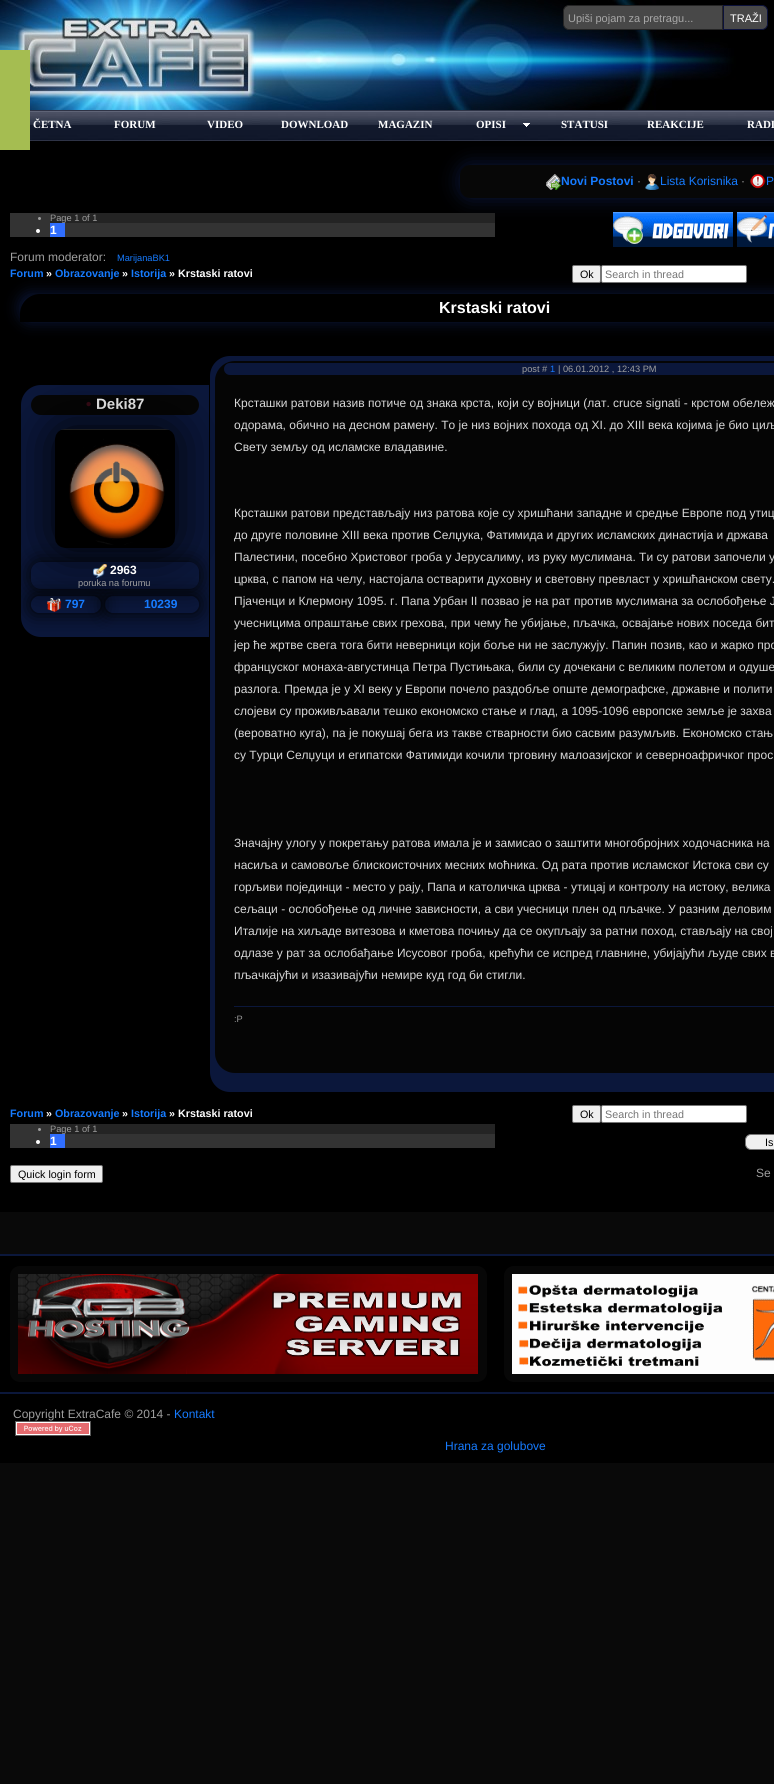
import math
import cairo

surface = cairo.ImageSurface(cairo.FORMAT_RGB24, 774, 1784)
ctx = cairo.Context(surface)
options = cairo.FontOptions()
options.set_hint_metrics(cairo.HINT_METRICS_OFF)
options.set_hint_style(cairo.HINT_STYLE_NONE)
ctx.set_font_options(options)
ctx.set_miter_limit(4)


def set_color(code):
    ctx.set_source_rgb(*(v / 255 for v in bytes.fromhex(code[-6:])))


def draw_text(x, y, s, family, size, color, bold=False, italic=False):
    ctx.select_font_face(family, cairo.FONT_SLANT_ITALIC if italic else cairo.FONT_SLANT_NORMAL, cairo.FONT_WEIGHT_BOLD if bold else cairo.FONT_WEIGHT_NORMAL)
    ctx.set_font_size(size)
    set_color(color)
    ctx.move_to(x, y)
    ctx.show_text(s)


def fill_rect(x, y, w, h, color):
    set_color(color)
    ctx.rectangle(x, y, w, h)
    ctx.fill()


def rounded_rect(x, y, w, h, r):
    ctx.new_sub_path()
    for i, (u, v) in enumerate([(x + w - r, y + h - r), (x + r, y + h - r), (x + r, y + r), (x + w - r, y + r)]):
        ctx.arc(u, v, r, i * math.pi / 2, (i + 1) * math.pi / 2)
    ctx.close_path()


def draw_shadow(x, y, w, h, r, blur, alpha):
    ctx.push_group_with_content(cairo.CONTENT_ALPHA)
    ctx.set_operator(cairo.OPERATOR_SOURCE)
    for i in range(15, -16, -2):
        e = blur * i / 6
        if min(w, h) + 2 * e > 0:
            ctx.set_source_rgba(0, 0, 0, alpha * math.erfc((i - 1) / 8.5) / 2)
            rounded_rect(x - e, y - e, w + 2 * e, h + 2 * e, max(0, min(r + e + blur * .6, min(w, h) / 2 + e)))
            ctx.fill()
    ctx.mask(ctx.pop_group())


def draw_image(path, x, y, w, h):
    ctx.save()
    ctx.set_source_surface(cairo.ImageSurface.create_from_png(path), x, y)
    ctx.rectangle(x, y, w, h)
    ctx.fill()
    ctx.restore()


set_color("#090909")
ctx.paint()
draw_image("assets/img1.png", 0, 0, 774, 110)
fill_rect(0, 141, 774, 1071, "#000000")
fill_rect(0, 50, 30, 100, "#a5bd51")
set_color("#484848")
ctx.new_path()
ctx.move_to(569, 5.5)
ctx.line_to(722.5, 5.5)
ctx.line_to(722.5, 29.5)
ctx.line_to(569, 29.5)
ctx.curve_to(566, 29.5, 563.5, 27, 563.5, 24)
ctx.line_to(563.5, 11)
ctx.curve_to(563.5, 8, 566, 5.5, 569, 5.5)
ctx.close_path()
ctx.fill_preserve()
set_color("#252525")
ctx.set_line_width(1)
ctx.stroke()
ctx.save()
ctx.rectangle(568, 12, 150, 12)
ctx.clip()
draw_text(568, 22, "Upiši pojam za pretragu...", "Liberation Sans", 11, "#a7a7a7")
ctx.restore()
set_color("#484848")
ctx.new_path()
ctx.move_to(723.5, 5.5)
ctx.line_to(762, 5.5)
ctx.curve_to(765, 5.5, 767.5, 8, 767.5, 11)
ctx.line_to(767.5, 24)
ctx.curve_to(767.5, 27, 765, 29.5, 762, 29.5)
ctx.line_to(723.5, 29.5)
ctx.close_path()
ctx.fill_preserve()
set_color("#0c123b")
ctx.stroke()
draw_text(730, 22, "TRAŽI", "Liberation Sans", 11, "#ffffff")
draw_image("assets/img2.png", 30, 110, 60, 31)
draw_text(33, 128, "ČETNA", "Liberation Serif", 11, "#ffffff", bold=True)
draw_image("assets/img3.png", 90, 110, 90, 31)
draw_text(114, 128, "FORUM", "Liberation Serif", 11, "#ffffff", bold=True)
draw_image("assets/img3.png", 180, 110, 90, 31)
draw_text(207, 128, "VIDEO", "Liberation Serif", 11, "#ffffff", bold=True)
draw_image("assets/img3.png", 270, 110, 90, 31)
draw_text(281, 128, "DOWNLOAD", "Liberation Serif", 11, "#ffffff", bold=True)
set_color("#0b173b")
draw_shadow(460, 165, 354, 33, 10, 10, 1)
draw_image("assets/img3.png", 360, 110, 90, 31)
draw_text(378, 128, "MAGAZIN", "Liberation Serif", 11, "#ffffff", bold=True)
draw_image("assets/img3.png", 450, 110, 90, 31)
draw_image("assets/img4.png", 523, 123, 7, 4)
draw_text(476, 128, "OPISI", "Liberation Serif", 11, "#ffffff", bold=True)
draw_image("assets/img3.png", 540, 110, 90, 31)
draw_text(561, 128, "STATUSI", "Liberation Serif", 11, "#ffffff", bold=True)
draw_image("assets/img3.png", 630, 110, 90, 31)
draw_text(647, 128, "REAKCIJE", "Liberation Serif", 11, "#ffffff", bold=True)
draw_image("assets/img5.png", 720, 110, 54, 31)
draw_text(747, 128, "RADI", "Liberation Serif", 11, "#ffffff", bold=True)
set_color("#070707")
rounded_rect(460, 165, 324, 33, 10)
ctx.fill()
draw_image("assets/img6.png", 546, 174, 15, 16)
draw_text(561, 185, "Novi Postovi", "Liberation Sans", 12, "#167bff", bold=True)
draw_text(637, 185, "·", "Liberation Sans", 12, "#9f9f9f")
draw_image("assets/img7.png", 645, 174, 14, 16)
draw_text(660, 185, "Lista Korisnika", "Liberation Sans", 12, "#167bff")
draw_text(741, 185, "·", "Liberation Sans", 12, "#9f9f9f")
draw_image("assets/img8.png", 750, 174, 16, 15)
draw_text(766, 185, "P", "Liberation Sans", 12, "#167bff")
fill_rect(10, 213, 485, 24, "#333333")
fill_rect(50, 213, 445, 10, "#242424")
set_color("#9f9f9f")
ctx.new_path()
ctx.arc(39.5, 218.5, 1.5, 0, 2 * math.pi)
ctx.fill()
draw_text(50, 221, "Page 1 of 1", "Liberation Sans", 9.25, "#9f9f9f")
fill_rect(50, 223, 15, 14, "#306eff")
set_color("#ffffff")
ctx.new_path()
ctx.arc(38, 231, 2, 0, 2 * math.pi)
ctx.fill()
draw_text(50, 234, "1", "Liberation Sans", 12, "#ffffff", bold=True)
draw_image("assets/img9.png", 613, 212, 120, 35)
draw_image("assets/img10.png", 737, 212, 37, 35)
draw_text(10, 261, "Forum moderator:", "Liberation Sans", 12, "#9f9f9f")
draw_text(117, 261, "MarijanaBK1", "Liberation Sans", 9.25, "#167bff")
set_color("#0b173b")
draw_shadow(20, 294, 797, 28, 20, 7.5, 1)
draw_text(10, 277, "Forum", "Liberation Sans", 10.75, "#167bff", bold=True)
draw_text(46, 277, "»", "Liberation Sans", 10.75, "#ffffff", bold=True)
draw_text(55, 277, "Obrazovanje", "Liberation Sans", 10.75, "#167bff", bold=True)
draw_text(122, 277, "»", "Liberation Sans", 10.75, "#ffffff", bold=True)
draw_text(131, 277, "Istorija", "Liberation Sans", 10.75, "#167bff", bold=True)
draw_text(169, 277, "» Krstaski ratovi", "Liberation Sans", 10.75, "#ffffff", bold=True)
set_color("#efefef")
rounded_rect(572.5, 265.5, 28, 17, 1.5)
ctx.fill_preserve()
set_color("#767676")
ctx.stroke()
draw_text(580, 278, "Ok", "Liberation Sans", 10.75, "#000000")
set_color("#ffffff")
rounded_rect(601.5, 265.5, 145, 17, 1.5)
ctx.fill_preserve()
set_color("#767676")
ctx.stroke()
draw_text(605, 278, "Search in thread", "Liberation Sans", 10.75, "#757575")
set_color("#000000")
ctx.new_path()
ctx.move_to(40, 294)
ctx.line_to(774, 294)
ctx.curve_to(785, 294, 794, 303, 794, 314)
ctx.line_to(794, 322)
ctx.line_to(20, 322)
ctx.line_to(20, 314)
ctx.curve_to(20, 303, 29, 294, 40, 294)
ctx.close_path()
ctx.fill()
draw_text(439, 313, "Krstaski ratovi", "Liberation Sans", 16, "#ffffff", bold=True)
set_color("#0b173b")
ctx.new_path()
ctx.move_to(41, 385)
ctx.line_to(209, 385)
ctx.line_to(209, 637)
ctx.line_to(41, 637)
ctx.curve_to(30, 637, 21, 628, 21, 617)
ctx.line_to(21, 405)
ctx.curve_to(21, 394, 30, 385, 41, 385)
ctx.close_path()
ctx.fill()
set_color("#050505")
rounded_rect(31, 395, 168, 20, 10)
ctx.fill()
draw_text(86, 409, "•", "Liberation Sans", 15, "#3b0b17", bold=True)
draw_text(96, 409, "Deki87", "Liberation Sans", 15, "#ffffff", bold=True)
ctx.save()
ctx.set_fill_rule(cairo.FILL_RULE_EVEN_ODD)
ctx.new_path()
ctx.move_to(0, 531)
ctx.line_to(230, 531)
ctx.line_to(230, 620)
ctx.line_to(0, 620)
ctx.close_path()
ctx.move_to(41, 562)
ctx.line_to(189, 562)
ctx.curve_to(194.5, 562, 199, 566.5, 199, 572)
ctx.line_to(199, 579)
ctx.curve_to(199, 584.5, 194.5, 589, 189, 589)
ctx.line_to(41, 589)
ctx.curve_to(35.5, 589, 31, 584.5, 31, 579)
ctx.line_to(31, 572)
ctx.curve_to(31, 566.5, 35.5, 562, 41, 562)
ctx.close_path()
ctx.clip()
set_color("#000000")
draw_shadow(31, 562, 168, 27, 10, 10, 1)
ctx.restore()
ctx.save()
ctx.set_fill_rule(cairo.FILL_RULE_EVEN_ODD)
ctx.new_path()
ctx.move_to(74, 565)
ctx.line_to(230, 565)
ctx.line_to(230, 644)
ctx.line_to(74, 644)
ctx.close_path()
ctx.move_to(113.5, 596)
ctx.line_to(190.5, 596)
ctx.curve_to(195, 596, 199, 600, 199, 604.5)
ctx.curve_to(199, 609, 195, 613, 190.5, 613)
ctx.line_to(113.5, 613)
ctx.curve_to(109, 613, 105, 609, 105, 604.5)
ctx.curve_to(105, 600, 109, 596, 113.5, 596)
ctx.close_path()
ctx.clip()
set_color("#000000")
draw_shadow(105, 596, 94, 17, 8.5, 10, 1)
ctx.restore()
set_color("#0b173b")
rounded_rect(210, 356, 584, 736, 20)
ctx.fill()
set_color("#050505")
rounded_rect(215, 361, 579, 712, 20)
ctx.fill()
set_color("#0b173b")
rounded_rect(224, 363, 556, 12, 6)
ctx.fill()
set_color("#000000")
draw_shadow(55, 429, 120, 119, 10, 25, 1)
draw_image("assets/img11.png", 55, 429, 120, 119)
ctx.save()
ctx.set_fill_rule(cairo.FILL_RULE_EVEN_ODD)
ctx.new_path()
ctx.move_to(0, 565)
ctx.line_to(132, 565)
ctx.line_to(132, 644)
ctx.line_to(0, 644)
ctx.close_path()
ctx.move_to(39.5, 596)
ctx.line_to(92.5, 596)
ctx.curve_to(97, 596, 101, 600, 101, 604.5)
ctx.curve_to(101, 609, 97, 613, 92.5, 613)
ctx.line_to(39.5, 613)
ctx.curve_to(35, 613, 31, 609, 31, 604.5)
ctx.curve_to(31, 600, 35, 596, 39.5, 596)
ctx.close_path()
ctx.clip()
draw_shadow(31, 596, 70, 17, 8.5, 10, 1)
ctx.restore()
draw_image("assets/img12.png", 93, 564, 14, 14)
draw_text(110, 574, "2963", "Liberation Sans", 12, "#ffffff", bold=True)
draw_text(78, 586, "poruka na forumu", "Liberation Sans", 9.25, "#9f9f9f")
draw_image("assets/img13.png", 47, 598, 14, 14)
draw_text(65, 608, "797", "Liberation Sans", 12, "#167bff", bold=True)
draw_text(144, 608, "10239", "Liberation Sans", 12, "#167bff", bold=True)
draw_text(522, 372, "post #", "Liberation Sans", 9.25, "#9f9f9f")
draw_text(550, 372, "1", "Liberation Sans", 9.25, "#167bff")
draw_text(558, 372, "| 06.01.2012 , 12:43 PM", "Liberation Sans", 9.25, "#9f9f9f")
draw_text(234, 407, "Крсташки ратови назив потиче од знака крста, који су војници (лат. cruce signati - крстом обележ", "Liberation Sans", 12, "#d8d8d8")
draw_text(234, 429, "одорама, обично на десном рамену. То је низ војних похода од XI. до XIII века којима је био циљ", "Liberation Sans", 12, "#d8d8d8")
draw_text(234, 451, "Свету земљу од исламске владавине.", "Liberation Sans", 12, "#d8d8d8")
draw_text(234, 517, "Крсташки ратови представљају низ ратова које су хришћани западне и средње Европе под утиц", "Liberation Sans", 12, "#d8d8d8")
draw_text(234, 539, "до друге половине XIII века против Селџука, Фатимида и других исламских династија и држава", "Liberation Sans", 12, "#d8d8d8")
draw_text(234, 561, "Палестини, посебно Христовог гроба у Јерусалиму, из руку муслимана. Ти су ратови започели у", "Liberation Sans", 12, "#d8d8d8")
draw_text(234, 583, "црква, с папом на челу, настојала остварити духовну и световну превласт у хришћанском свету.", "Liberation Sans", 12, "#d8d8d8")
draw_text(234, 605, "Пјаченци и Клермону 1095. г. Папа Урбан II позвао је на рат против муслимана за ослобођење Ј", "Liberation Sans", 12, "#d8d8d8")
draw_text(234, 627, "учесницима опраштање свих грехова, при чему ће убијање, пљачка, освајање нових поседа бит", "Liberation Sans", 12, "#d8d8d8")
draw_text(234, 649, "јер ће жртве свега тога бити неверници који боље ни не заслужују. Папин позив, као и жарко про", "Liberation Sans", 12, "#d8d8d8")
draw_text(234, 671, "француског монаха-августинца Петра Пустињака, били су дочекани с великим полетом и одуше", "Liberation Sans", 12, "#d8d8d8")
draw_text(234, 693, "разлога. Премда је у XI веку у Европи почело раздобље опште демографске, државне и полити", "Liberation Sans", 12, "#d8d8d8")
draw_text(234, 715, "слојеви су проживљавали тешко економско стање и глад, а 1095-1096 европске земље је захва", "Liberation Sans", 12, "#d8d8d8")
draw_text(234, 737, "(вероватно куга), па је покушај бега из такве стварности био сасвим разумљив. Економско стањ", "Liberation Sans", 12, "#d8d8d8")
draw_text(234, 759, "су Турци Селџуци и египатски Фатимиди кочили трговину малоазијског и северноафричког прос", "Liberation Sans", 12, "#d8d8d8")
draw_text(234, 847, "Значајну улогу у покретању ратова имала је и замисао о заштити многобројних ходочасника на", "Liberation Sans", 12, "#d8d8d8")
draw_text(234, 869, "насиља и самовоље блискоисточних месних моћника. Од рата против исламског Истока сви су", "Liberation Sans", 12, "#d8d8d8")
draw_text(234, 891, "горљиви појединци - место у рају, Папа и католичка црква - утицај и контролу на истоку, велика", "Liberation Sans", 12, "#d8d8d8")
draw_text(234, 913, "сељаци - ослобођење од личне зависности, а сви учесници плен од пљачке. У разним деловим", "Liberation Sans", 12, "#d8d8d8")
draw_text(234, 935, "Италије на хиљаде витезова и кметова почињу да се окупљају за ратни поход, стављају на свој", "Liberation Sans", 12, "#d8d8d8")
draw_text(234, 957, "одлазе у рат за ослобађање Исусовог гроба, крећући се испред главнине, убијајући људе свих в", "Liberation Sans", 12, "#d8d8d8")
draw_text(234, 979, "пљачкајући и изазивајући немире куд год би стигли.", "Liberation Sans", 12, "#d8d8d8")
fill_rect(234, 1006, 540, 1, "#0b173b")
draw_text(234, 1022, ":P", "Liberation Sans", 9.25, "#999999")
draw_text(10, 1117, "Forum", "Liberation Sans", 10.75, "#167bff", bold=True)
draw_text(46, 1117, "»", "Liberation Sans", 10.75, "#ffffff", bold=True)
draw_text(55, 1117, "Obrazovanje", "Liberation Sans", 10.75, "#167bff", bold=True)
draw_text(122, 1117, "»", "Liberation Sans", 10.75, "#ffffff", bold=True)
draw_text(131, 1117, "Istorija", "Liberation Sans", 10.75, "#167bff", bold=True)
draw_text(169, 1117, "» Krstaski ratovi", "Liberation Sans", 10.75, "#ffffff", bold=True)
set_color("#efefef")
rounded_rect(572.5, 1105.5, 28, 17, 1.5)
ctx.fill_preserve()
set_color("#767676")
ctx.stroke()
draw_text(580, 1118, "Ok", "Liberation Sans", 10.75, "#000000")
set_color("#ffffff")
rounded_rect(601.5, 1105.5, 145, 17, 1.5)
ctx.fill_preserve()
set_color("#767676")
ctx.stroke()
draw_text(605, 1118, "Search in thread", "Liberation Sans", 10.75, "#757575")
fill_rect(10, 1124, 485, 24, "#333333")
fill_rect(50, 1124, 445, 10, "#242424")
set_color("#9f9f9f")
ctx.new_path()
ctx.arc(39.5, 1129.5, 1.5, 0, 2 * math.pi)
ctx.fill()
draw_text(50, 1132, "Page 1 of 1", "Liberation Sans", 9.25, "#9f9f9f")
fill_rect(50, 1134, 15, 14, "#306eff")
set_color("#ffffff")
ctx.new_path()
ctx.arc(38, 1142, 2, 0, 2 * math.pi)
ctx.fill()
draw_text(50, 1145, "1", "Liberation Sans", 12, "#ffffff", bold=True)
set_color("#efefef")
rounded_rect(745.5, 1134.5, 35, 15, 5.5)
ctx.fill_preserve()
set_color("#767676")
ctx.stroke()
draw_text(765, 1146, "Is", "Liberation Sans", 10.75, "#000000")
set_color("#efefef")
rounded_rect(10.5, 1165.5, 92, 17, 1.5)
ctx.fill_preserve()
set_color("#767676")
ctx.stroke()
draw_text(18, 1178, "Quick login form", "Liberation Sans", 10.75, "#000000")
draw_text(756, 1177, "Se", "Liberation Sans", 12, "#9f9f9f")
fill_rect(0, 1256, 774, 136, "#000000")
fill_rect(0, 1254, 774, 2, "#0b173b")
set_color("#070707")
rounded_rect(10, 1266, 477, 116, 10)
ctx.fill()
draw_image("assets/img14.png", 18, 1274, 460, 100)
rounded_rect(504, 1266, 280, 116, 10)
ctx.fill()
draw_image("assets/img15.png", 512, 1274, 262, 100)
fill_rect(0, 1394, 774, 69, "#000000")
fill_rect(0, 1392, 774, 2, "#0b173b")
draw_text(13, 1418, "Copyright ExtraCafe © 2014 -", "Liberation Sans", 12, "#9f9f9f")
draw_text(174, 1418, "Kontakt", "Liberation Sans", 12, "#167bff")
draw_image("assets/img16.png", 15, 1421, 76, 15)
draw_text(445, 1450, "Hrana za golubove", "Liberation Sans", 12, "#167bff")
surface.write_to_png("output.png")
